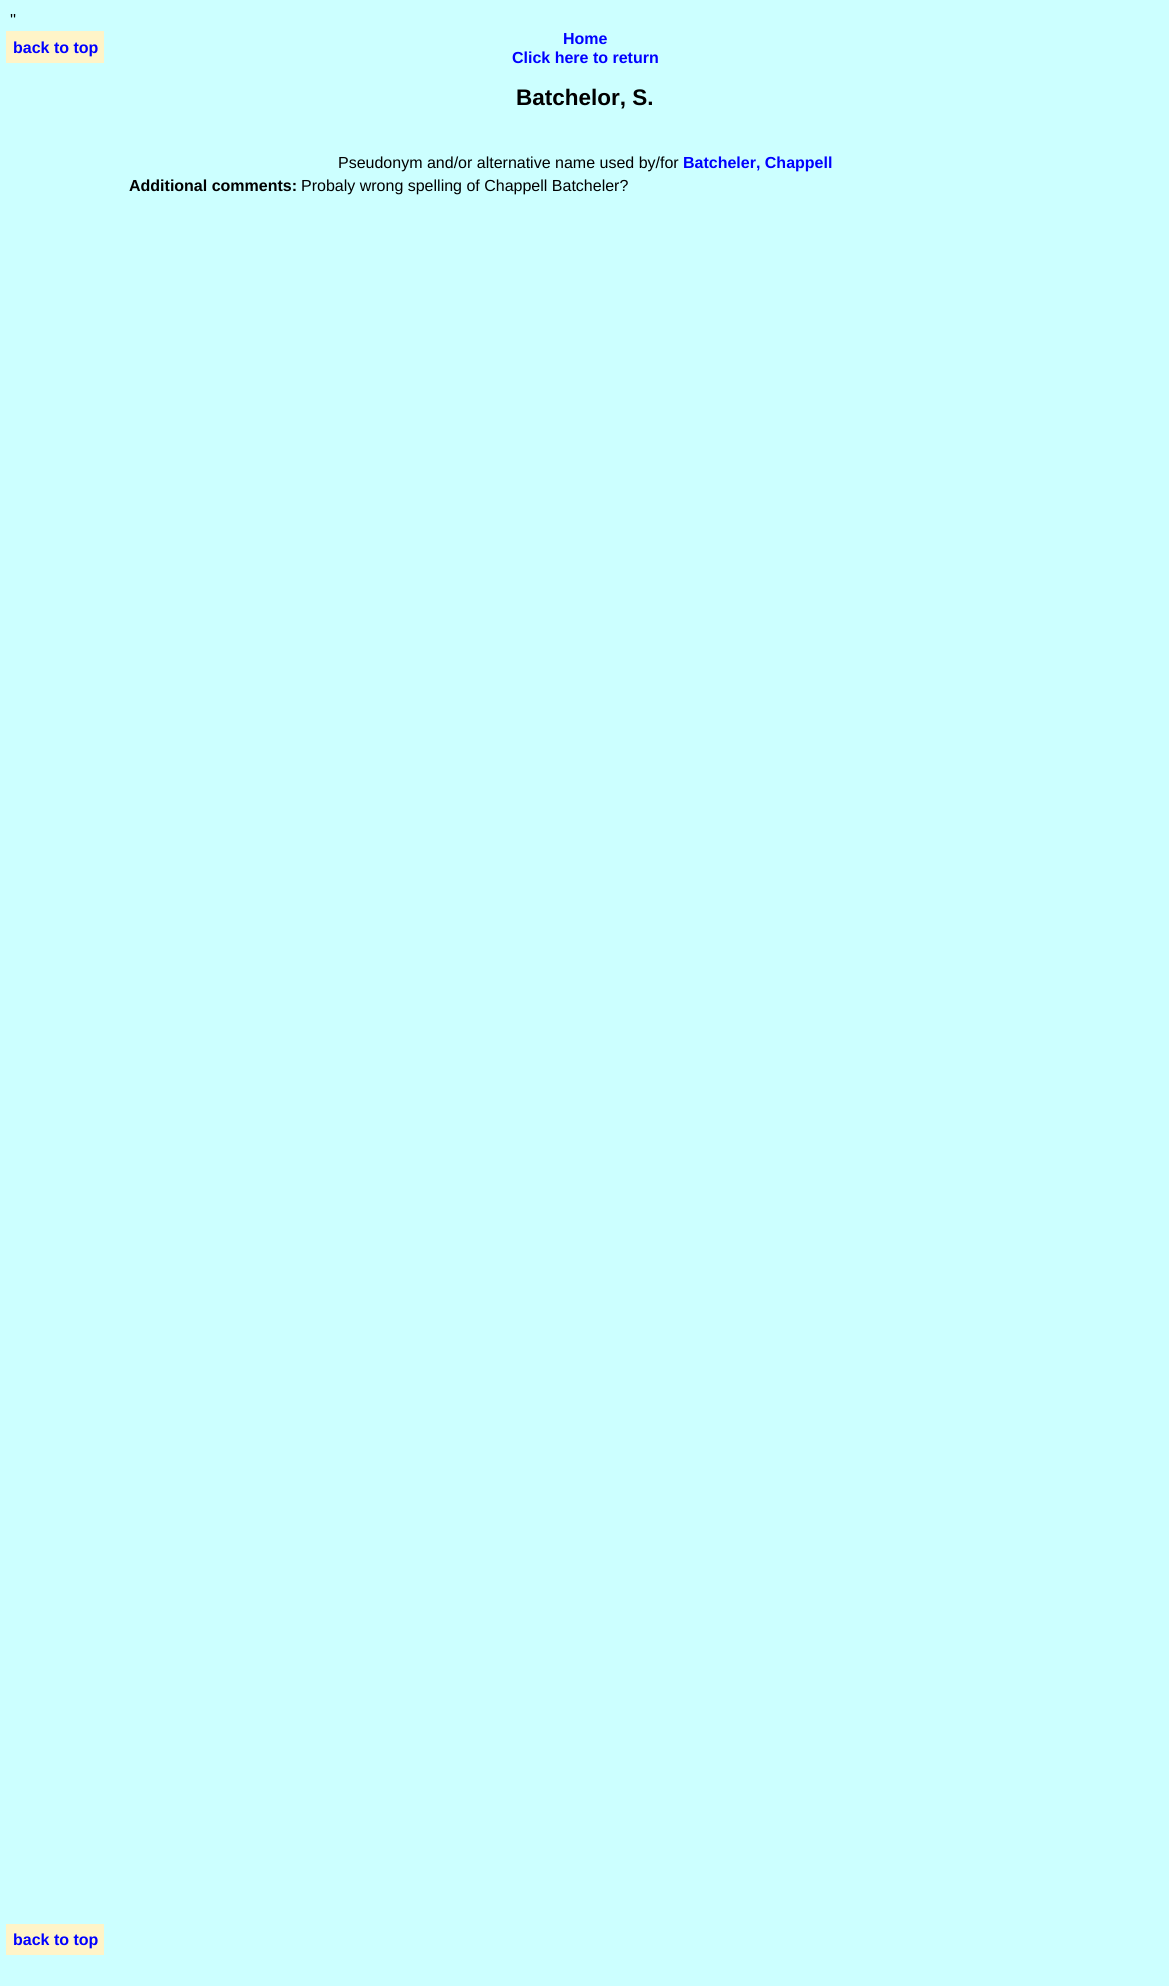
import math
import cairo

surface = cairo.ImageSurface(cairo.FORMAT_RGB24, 1169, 1986)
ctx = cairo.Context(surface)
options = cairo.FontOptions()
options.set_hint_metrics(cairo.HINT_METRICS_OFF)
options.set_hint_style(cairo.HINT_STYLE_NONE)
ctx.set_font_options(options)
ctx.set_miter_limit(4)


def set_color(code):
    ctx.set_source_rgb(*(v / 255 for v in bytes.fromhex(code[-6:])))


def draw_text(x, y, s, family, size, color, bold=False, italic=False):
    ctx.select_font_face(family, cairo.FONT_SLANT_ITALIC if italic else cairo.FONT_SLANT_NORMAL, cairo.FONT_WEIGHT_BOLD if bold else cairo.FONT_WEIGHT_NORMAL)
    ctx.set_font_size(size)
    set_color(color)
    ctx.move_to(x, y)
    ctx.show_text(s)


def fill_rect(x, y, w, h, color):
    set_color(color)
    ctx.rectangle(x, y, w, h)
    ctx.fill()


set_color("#ccffff")
ctx.paint()
draw_text(10, 25, "''", "Liberation Sans", 16, "#000000")
fill_rect(6, 31, 98, 32, "#fff4c8")
draw_text(13, 53, "back to top", "Liberation Sans", 16, "#0000ff", bold=True)
draw_text(563, 44, "Home", "Liberation Sans", 16, "#0000ff", bold=True)
draw_text(512, 63, "Click here to return", "Liberation Sans", 16, "#0000ff", bold=True)
draw_text(516, 105, "Batchelor, S.", "Liberation Sans", 22.5, "#000000", bold=True)
draw_text(338, 168, "Pseudonym and/or alternative name used by/for", "Liberation Sans", 16, "#000000")
draw_text(683, 168, "Batcheler, Chappell", "Liberation Sans", 16, "#0000ff", bold=True)
draw_text(129, 191, "Additional comments:", "Liberation Sans", 16, "#000000", bold=True)
draw_text(301, 191, "Probaly wrong spelling of Chappell Batcheler?", "Liberation Sans", 16, "#000000")
fill_rect(6, 1924, 98, 31, "#fff4c8")
draw_text(13, 1945, "back to top", "Liberation Sans", 16, "#0000ff", bold=True)
surface.write_to_png("output.png")
